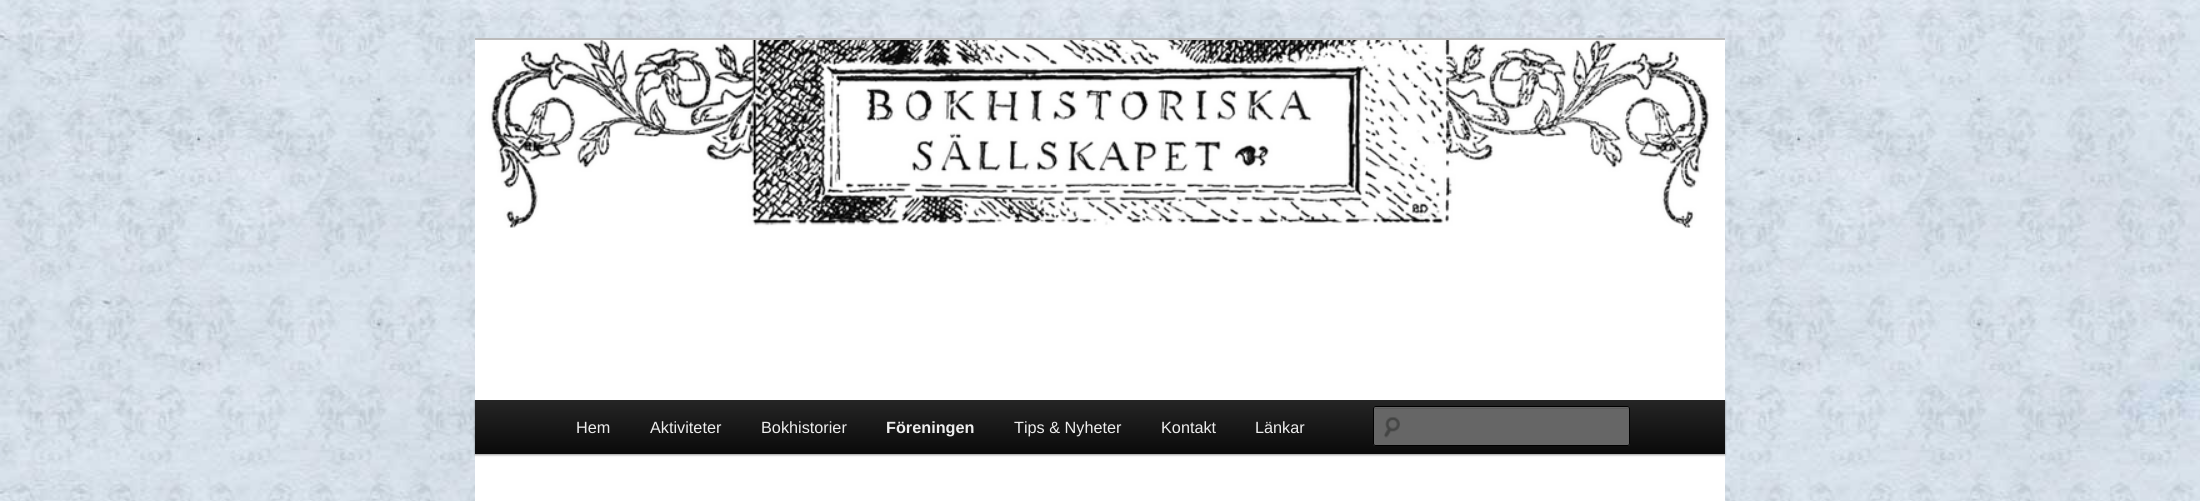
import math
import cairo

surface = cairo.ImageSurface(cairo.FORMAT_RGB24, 2200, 501)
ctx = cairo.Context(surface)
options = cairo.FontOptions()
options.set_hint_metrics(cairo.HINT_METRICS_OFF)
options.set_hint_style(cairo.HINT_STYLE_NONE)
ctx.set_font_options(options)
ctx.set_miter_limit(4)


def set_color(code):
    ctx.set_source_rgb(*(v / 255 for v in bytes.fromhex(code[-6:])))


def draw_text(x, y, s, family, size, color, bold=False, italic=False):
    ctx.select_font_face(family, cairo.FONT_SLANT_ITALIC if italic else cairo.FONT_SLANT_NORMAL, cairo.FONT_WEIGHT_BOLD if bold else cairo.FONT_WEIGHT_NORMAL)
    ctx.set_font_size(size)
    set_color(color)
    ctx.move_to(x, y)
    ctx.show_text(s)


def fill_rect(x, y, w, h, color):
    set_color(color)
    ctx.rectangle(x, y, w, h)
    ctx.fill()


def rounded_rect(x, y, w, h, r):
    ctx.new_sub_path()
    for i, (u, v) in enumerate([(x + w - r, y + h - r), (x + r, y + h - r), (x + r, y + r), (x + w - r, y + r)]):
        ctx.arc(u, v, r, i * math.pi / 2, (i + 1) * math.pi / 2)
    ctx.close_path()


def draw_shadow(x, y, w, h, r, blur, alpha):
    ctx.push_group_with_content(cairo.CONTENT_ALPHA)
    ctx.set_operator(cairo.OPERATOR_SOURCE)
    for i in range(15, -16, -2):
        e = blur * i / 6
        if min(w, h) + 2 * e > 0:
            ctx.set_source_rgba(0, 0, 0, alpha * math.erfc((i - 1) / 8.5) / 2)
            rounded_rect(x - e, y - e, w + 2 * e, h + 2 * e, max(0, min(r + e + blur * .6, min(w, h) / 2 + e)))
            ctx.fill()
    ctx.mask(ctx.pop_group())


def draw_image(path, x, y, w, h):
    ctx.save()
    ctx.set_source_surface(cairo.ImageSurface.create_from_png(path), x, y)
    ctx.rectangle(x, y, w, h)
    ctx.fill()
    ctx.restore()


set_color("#ffffff")
ctx.paint()
draw_image("assets/img1.png", 0, 0, 2200, 501)
fill_rect(475, 454, 1250, 47, "#ffffff")
fill_rect(475, 38, 1250, 2, "#bbbbbb")
set_color("#000000")
draw_shadow(475, 401, 1250, 54, 0, 1, 0.4)
draw_image("assets/img2.png", 475, 40, 1250, 360)
gradient = cairo.LinearGradient(1100, 400, 1100, 454)
gradient.add_color_stop_rgba(0, 0.145, 0.145, 0.145, 1)
gradient.add_color_stop_rgba(1, 0.039, 0.039, 0.039, 1)
ctx.set_source(gradient)
ctx.rectangle(475, 400, 1250, 54)
ctx.fill()
draw_text(576, 433, "Hem", "Liberation Sans", 16.25, "#eeeeee")
draw_text(650, 433, "Aktiviteter", "Liberation Sans", 16.25, "#eeeeee")
draw_text(761, 433, "Bokhistorier", "Liberation Sans", 16.25, "#eeeeee")
draw_text(886, 433, "Föreningen", "Liberation Sans", 16.25, "#eeeeee", bold=True)
draw_text(1014, 433, "Tips & Nyheter", "Liberation Sans", 16.25, "#eeeeee")
draw_text(1161, 433, "Kontakt", "Liberation Sans", 16.25, "#eeeeee")
draw_text(1255, 433, "Länkar", "Liberation Sans", 16.25, "#eeeeee")
set_color("#666666")
rounded_rect(1373, 406, 257, 40, 2.5)
ctx.fill()
draw_image("assets/img3.png", 1384, 417, 16, 21)
set_color("#5c5c5c")
ctx.new_path()
ctx.move_to(1375, 409)
ctx.line_to(1628, 409)
ctx.line_to(1629, 410)
ctx.line_to(1629, 408)
ctx.line_to(1375, 408)
ctx.curve_to(1374, 408, 1374, 409, 1374, 410)
ctx.curve_to(1374, 409, 1374, 409, 1375, 409)
ctx.close_path()
ctx.fill()
rounded_rect(1373.5, 406.5, 256, 39, 2)
set_color("#000000")
ctx.set_line_width(1)
ctx.stroke()
surface.write_to_png("output.png")
